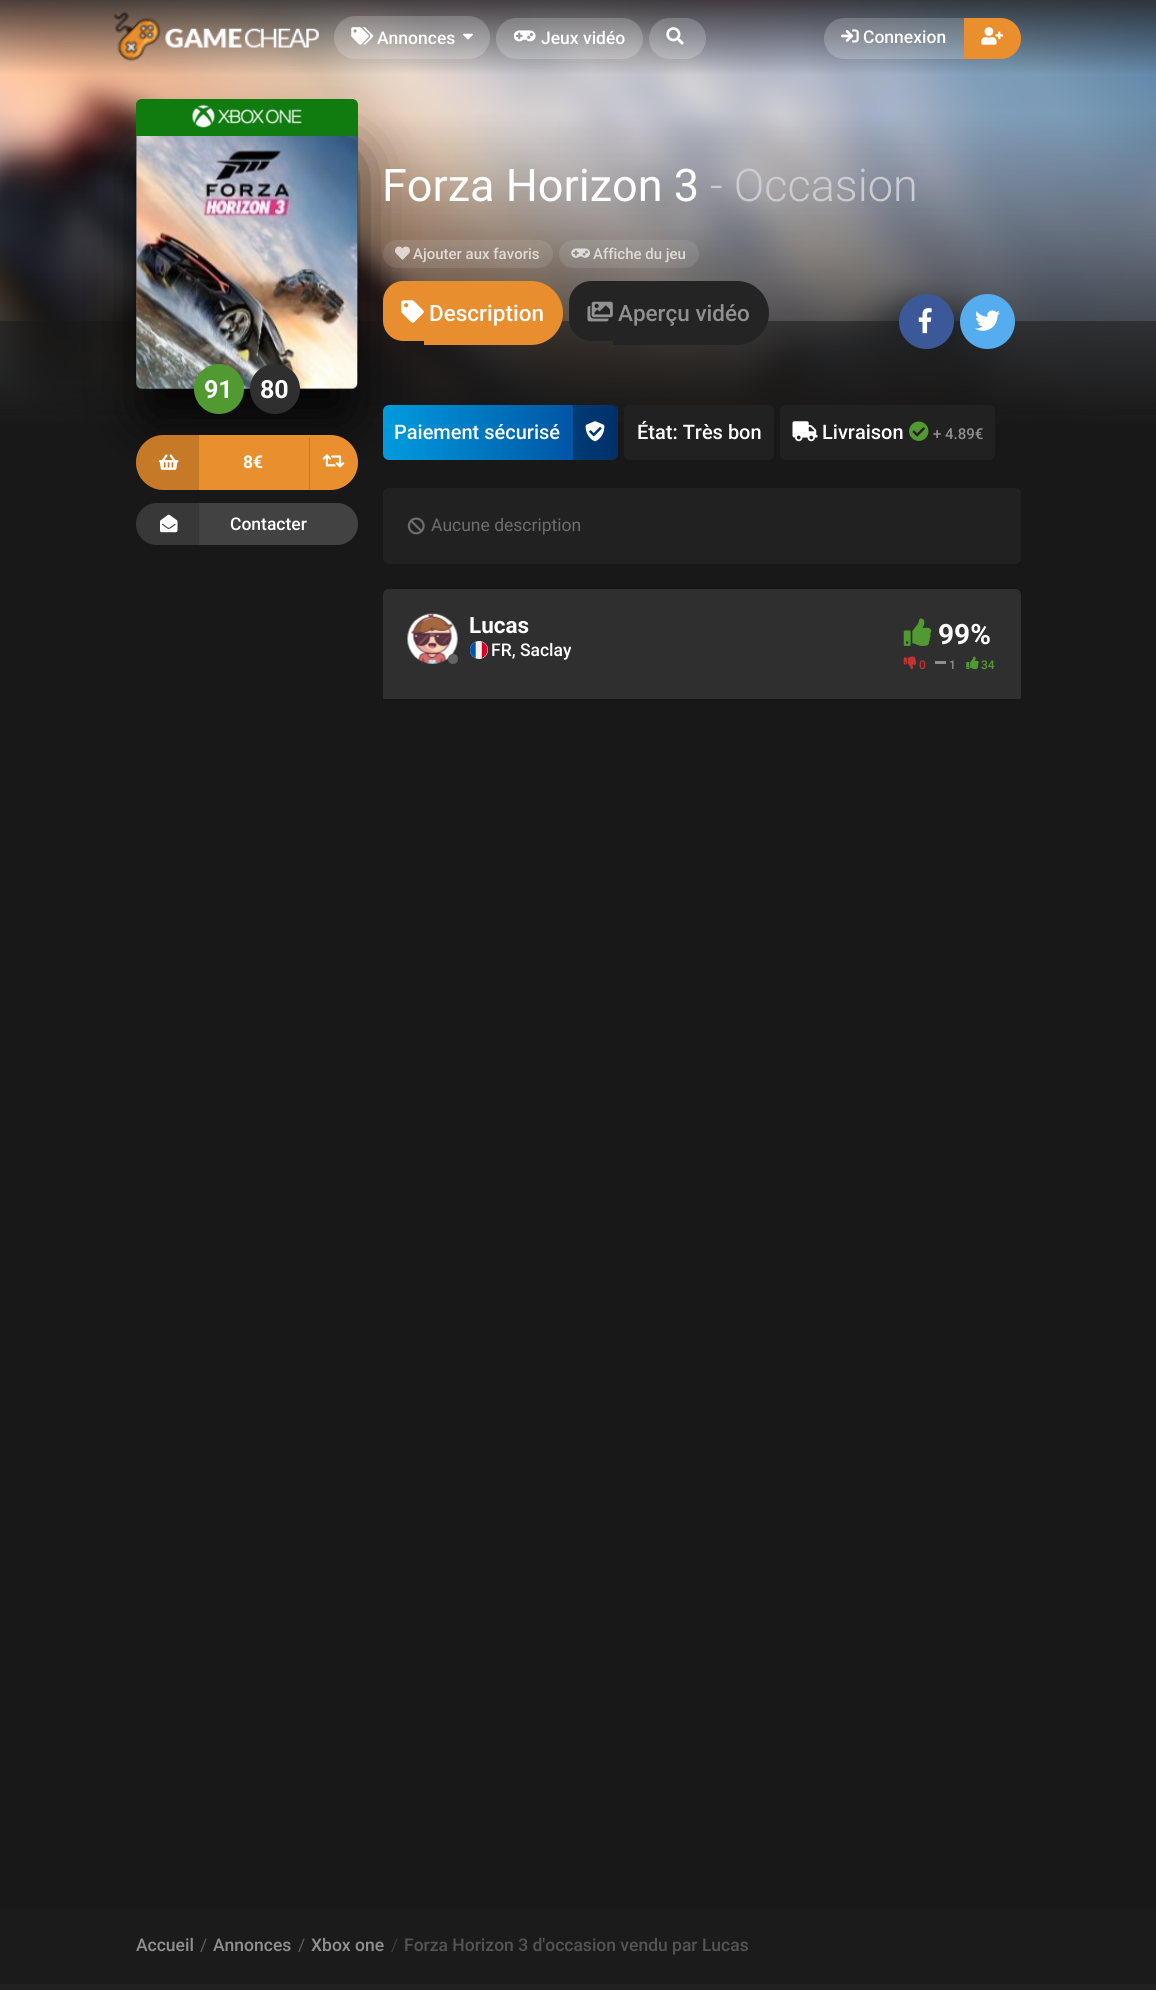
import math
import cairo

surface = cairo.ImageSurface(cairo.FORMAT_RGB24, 1156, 1990)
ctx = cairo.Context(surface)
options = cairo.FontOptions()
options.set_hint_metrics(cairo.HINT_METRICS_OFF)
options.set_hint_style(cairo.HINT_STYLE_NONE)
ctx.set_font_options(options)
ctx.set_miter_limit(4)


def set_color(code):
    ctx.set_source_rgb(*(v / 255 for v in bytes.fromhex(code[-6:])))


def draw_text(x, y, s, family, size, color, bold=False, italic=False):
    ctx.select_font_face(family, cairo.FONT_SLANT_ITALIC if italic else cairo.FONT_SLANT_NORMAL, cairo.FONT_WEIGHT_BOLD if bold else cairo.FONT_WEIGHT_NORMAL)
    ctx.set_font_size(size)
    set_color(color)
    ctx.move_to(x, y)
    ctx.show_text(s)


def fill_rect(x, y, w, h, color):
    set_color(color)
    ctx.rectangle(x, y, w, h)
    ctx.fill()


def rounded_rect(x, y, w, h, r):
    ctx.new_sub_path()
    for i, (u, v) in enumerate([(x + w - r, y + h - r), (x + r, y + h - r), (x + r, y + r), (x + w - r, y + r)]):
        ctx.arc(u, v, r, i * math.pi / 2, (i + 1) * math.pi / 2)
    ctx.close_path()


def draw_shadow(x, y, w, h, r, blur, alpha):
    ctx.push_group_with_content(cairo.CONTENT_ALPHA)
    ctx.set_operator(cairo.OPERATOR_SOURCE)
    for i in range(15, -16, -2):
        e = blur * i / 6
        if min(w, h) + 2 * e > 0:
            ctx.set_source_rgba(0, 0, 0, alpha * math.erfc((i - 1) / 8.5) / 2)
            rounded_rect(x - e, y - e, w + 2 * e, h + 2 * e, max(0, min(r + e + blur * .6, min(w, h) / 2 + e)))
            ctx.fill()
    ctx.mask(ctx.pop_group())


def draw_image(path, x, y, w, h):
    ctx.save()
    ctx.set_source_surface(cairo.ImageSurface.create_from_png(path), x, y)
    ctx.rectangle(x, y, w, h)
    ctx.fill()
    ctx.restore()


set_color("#191818")
ctx.paint()
draw_image("assets/img1.png", 0, 0, 1156, 613)
ctx.set_source_rgba(0.098, 0.094, 0.094, 0.5)
ctx.rectangle(0, 321, 1156, 94)
ctx.fill()
draw_image("assets/img2.png", 113, 12, 207, 50)
ctx.set_source_rgba(1, 1, 1, 0.2)
rounded_rect(334, 16, 156, 43, 21.5)
ctx.fill()
draw_image("assets/img3.png", 351, 27, 23, 18)
draw_text(377, 44, "Annonces", "Roboto Medium", 17.5, "#ffffff")
draw_image("assets/img4.png", 462, 33, 11, 7)
ctx.set_source_rgba(1, 1, 1, 0.2)
rounded_rect(496, 18, 147, 41, 20.5)
ctx.fill()
draw_image("assets/img5.png", 514, 30, 22, 12)
draw_text(541, 44, "Jeux vidéo", "Roboto Medium", 17.5, "#ffffff")
ctx.set_source_rgba(1, 1, 1, 0.2)
rounded_rect(649, 18, 57, 41, 20.5)
ctx.fill()
draw_image("assets/img6.png", 666, 27, 18, 18)
ctx.new_path()
ctx.move_to(844.5, 18)
ctx.line_to(964, 18)
ctx.line_to(964, 59)
ctx.line_to(844.5, 59)
ctx.curve_to(833, 59, 824, 50, 824, 38.5)
ctx.curve_to(824, 27, 833, 18, 844.5, 18)
ctx.close_path()
ctx.fill()
draw_image("assets/img7.png", 841, 29, 18, 14)
draw_text(863, 43, "Connexion", "Roboto Medium", 17.5, "#ffffff")
set_color("#e98f2e")
ctx.new_path()
ctx.move_to(964, 18)
ctx.line_to(1000.5, 18)
ctx.curve_to(1012, 18, 1021, 27, 1021, 38.5)
ctx.curve_to(1021, 50, 1012, 59, 1000.5, 59)
ctx.line_to(964, 59)
ctx.close_path()
ctx.fill()
draw_image("assets/img8.png", 981, 27, 23, 18)
set_color("#000000")
draw_shadow(149, 163, 196, 251, 0, 31, 1)
draw_text(382, 201, "Forza Horizon 3", "Roboto", 45, "#ffffff")
draw_text(710, 201, "- Occasion", "Roboto Light", 45, "#cbccd0")
ctx.set_source_rgba(1, 1, 1, 0.1)
rounded_rect(383, 240, 170, 28, 14)
ctx.fill()
draw_image("assets/img9.png", 395, 246, 15, 14)
draw_text(413, 259, "Ajouter aux favoris", "Roboto Medium", 15, "#dfdad6")
ctx.set_source_rgba(1, 1, 1, 0.1)
rounded_rect(559, 240, 140, 28, 14)
ctx.fill()
draw_image("assets/img10.png", 571, 248, 19, 10)
draw_text(593, 259, "Affiche du jeu", "Roboto Medium", 15, "#dfdad6")
set_color("#383838")
rounded_rect(136, 113, 222, 276, 6)
ctx.fill()
set_color("#107c10")
ctx.new_path()
ctx.move_to(142, 99)
ctx.line_to(352, 99)
ctx.curve_to(355.5, 99, 358, 101.5, 358, 105)
ctx.line_to(358, 136)
ctx.line_to(136, 136)
ctx.line_to(136, 105)
ctx.curve_to(136, 101.5, 138.5, 99, 142, 99)
ctx.close_path()
ctx.fill()
draw_image("assets/img11.png", 192, 104, 110, 24)
draw_image("assets/img12.png", 136, 136, 222, 254)
set_color("#519a31")
ctx.arc(219, 389, 25, 0, 2 * math.pi)
ctx.fill()
draw_text(204, 398, "91", "Roboto", 25, "#ffffff", bold=True)
set_color("#302f2f")
ctx.new_path()
ctx.arc(275, 389, 25, 0, 2 * math.pi)
ctx.fill()
draw_text(260, 398, "80", "Roboto", 25, "#ffffff", bold=True)
set_color("#e98f2e")
rounded_rect(136, 435, 222, 55, 27.5)
ctx.fill()
ctx.set_source_rgba(0, 0, 0, 0.15)
ctx.new_path()
ctx.move_to(163.5, 435)
ctx.line_to(199, 435)
ctx.line_to(199, 490)
ctx.line_to(163.5, 490)
ctx.curve_to(148.5, 490, 136, 477.5, 136, 462.5)
ctx.curve_to(136, 447.5, 148.5, 435, 163.5, 435)
ctx.close_path()
ctx.fill()
draw_image("assets/img13.png", 158, 454, 21, 16)
draw_text(243, 468, "8€", "Roboto", 17.5, "#ffffff", bold=True)
fill_rect(309, 438, 1, 51, "#c67a27")
draw_image("assets/img14.png", 322, 454, 23, 14)
set_color("#424242")
rounded_rect(136, 503, 222, 42, 21)
ctx.fill()
ctx.set_source_rgba(0, 0, 0, 0.15)
ctx.new_path()
ctx.move_to(157, 503)
ctx.line_to(199, 503)
ctx.line_to(199, 545)
ctx.line_to(157, 545)
ctx.curve_to(145.5, 545, 136, 535.5, 136, 524)
ctx.curve_to(136, 512.5, 145.5, 503, 157, 503)
ctx.close_path()
ctx.fill()
draw_image("assets/img15.png", 160, 514, 18, 19)
draw_text(230, 530, "Contacter", "Roboto Medium", 17.5, "#ffffff")
set_color("#e88e2e")
ctx.new_path()
ctx.move_to(403.5, 281)
ctx.line_to(424, 281)
ctx.line_to(424, 341)
ctx.line_to(403.5, 341)
ctx.curve_to(392, 341, 383, 332, 383, 320.5)
ctx.line_to(383, 301.5)
ctx.curve_to(383, 290, 392, 281, 403.5, 281)
ctx.close_path()
ctx.fill()
ctx.new_path()
ctx.move_to(424, 281)
ctx.line_to(531, 281)
ctx.curve_to(548.5, 281, 563, 295.5, 563, 313)
ctx.curve_to(563, 330.5, 548.5, 345, 531, 345)
ctx.line_to(424, 345)
ctx.close_path()
ctx.fill()
draw_image("assets/img16.png", 401, 300, 23, 23)
draw_text(429, 321, "Description", "Roboto Medium", 22.5, "#ffffff")
set_color("#242424")
ctx.new_path()
ctx.move_to(591, 281)
ctx.line_to(613, 281)
ctx.line_to(613, 341)
ctx.line_to(591, 341)
ctx.curve_to(579, 341, 569, 331, 569, 319)
ctx.line_to(569, 303)
ctx.curve_to(569, 291, 579, 281, 591, 281)
ctx.close_path()
ctx.fill()
ctx.new_path()
ctx.move_to(613, 281)
ctx.line_to(737, 281)
ctx.curve_to(754.5, 281, 769, 295.5, 769, 313)
ctx.curve_to(769, 330.5, 754.5, 345, 737, 345)
ctx.line_to(613, 345)
ctx.close_path()
ctx.fill()
draw_image("assets/img17.png", 587, 301, 26, 21)
draw_text(618, 321, "Aperçu vidéo", "Roboto Medium", 22.5, "#909090")
set_color("#3b5998")
ctx.new_path()
ctx.arc(926.5, 321.5, 27.5, 0, 2 * math.pi)
ctx.fill()
draw_image("assets/img18.png", 918, 308, 14, 26)
set_color("#55acee")
ctx.arc(987.5, 321.5, 27.5, 0, 2 * math.pi)
ctx.fill()
draw_image("assets/img19.png", 975, 310, 25, 21)
gradient = cairo.LinearGradient(383, 433, 618, 433)
gradient.add_color_stop_rgba(0, 0, 0.612, 0.871, 1)
gradient.add_color_stop_rgba(1, 0, 0.267, 0.592, 1)
ctx.set_source(gradient)
rounded_rect(383, 405, 235, 55, 6)
ctx.fill()
draw_text(394, 439, "Paiement sécurisé", "Roboto Medium", 20, "#ffffff")
ctx.set_source_rgba(0, 0, 0, 0.3)
ctx.new_path()
ctx.move_to(573, 405)
ctx.line_to(612, 405)
ctx.curve_to(615.5, 405, 618, 407.5, 618, 411)
ctx.line_to(618, 454)
ctx.curve_to(618, 457.5, 615.5, 460, 612, 460)
ctx.line_to(573, 460)
ctx.close_path()
ctx.fill()
draw_image("assets/img20.png", 585, 421, 20, 21)
set_color("#212121")
rounded_rect(624, 405, 150, 55, 6)
ctx.fill()
draw_text(637, 439, "État: Très bon", "Roboto Medium", 20, "#ffffff")
set_color("#212121")
rounded_rect(780, 405, 215, 55, 6)
ctx.fill()
draw_image("assets/img21.png", 792, 421, 26, 21)
draw_text(822, 439, "Livraison", "Roboto Medium", 20, "#ffffff")
draw_image("assets/img22.png", 909, 421, 20, 20)
draw_text(933, 439, "+ 4.89€", "Roboto Medium", 15, "#909090")
set_color("#212121")
rounded_rect(383, 488, 638, 76, 6)
ctx.fill()
draw_image("assets/img23.png", 407, 517, 18, 18)
draw_text(431, 531, "Aucune description", "Roboto", 17.5, "#6d6d6d")
set_color("#302f2f")
ctx.new_path()
ctx.move_to(389, 589)
ctx.line_to(1015, 589)
ctx.curve_to(1018.5, 589, 1021, 591.5, 1021, 595)
ctx.line_to(1021, 699)
ctx.line_to(383, 699)
ctx.line_to(383, 595)
ctx.curve_to(383, 591.5, 385.5, 589, 389, 589)
ctx.close_path()
ctx.fill()
draw_image("assets/img24.png", 407, 613, 51, 51)
set_color("#636363")
ctx.arc(453, 659, 5, 0, 2 * math.pi)
ctx.fill()
draw_text(469, 633, "Lucas", "Roboto", 22.5, "#ffffff", bold=True)
draw_image("assets/img25.png", 470, 641, 18, 18)
ctx.save()
ctx.rectangle(470, 638, 101, 26)
ctx.clip()
draw_text(491, 656, "FR, Saclay", "Roboto Medium", 17.5, "#ffffff")
ctx.restore()
draw_image("assets/img26.png", 903, 618, 29, 28)
draw_text(938, 644, "99%", "Roboto", 28, "#ffffff", bold=True)
draw_image("assets/img27.png", 903, 656, 14, 13)
draw_text(919, 669, "0", "Roboto Medium", 12, "#c33333")
fill_rect(935, 661, 11, 3, "#8e8e8e")
draw_text(949, 669, "1", "Roboto Medium", 12, "#909090")
draw_image("assets/img28.png", 966, 656, 13, 14)
draw_text(981, 669, "34", "Roboto Medium", 12, "#519a31")
fill_rect(0, 1908, 1156, 76, "#1b1b1b")
draw_text(136, 1951, "Accueil", "Roboto Medium", 17.5, "#909090")
draw_text(200, 1951, "/", "Roboto", 17.5, "#5f5f5f")
draw_text(213, 1951, "Annonces", "Roboto Medium", 17.5, "#909090")
draw_text(298, 1951, "/", "Roboto", 17.5, "#5f5f5f")
draw_text(311, 1951, "Xbox one", "Roboto Medium", 17.5, "#909090")
draw_text(391, 1951, "/", "Roboto", 17.5, "#3d3d3d")
draw_text(404, 1951, "Forza Horizon 3 d'occasion vendu par Lucas", "Roboto Medium", 17.5, "#545454")
fill_rect(0, 1984, 1156, 6, "#212121")
surface.write_to_png("output.png")
